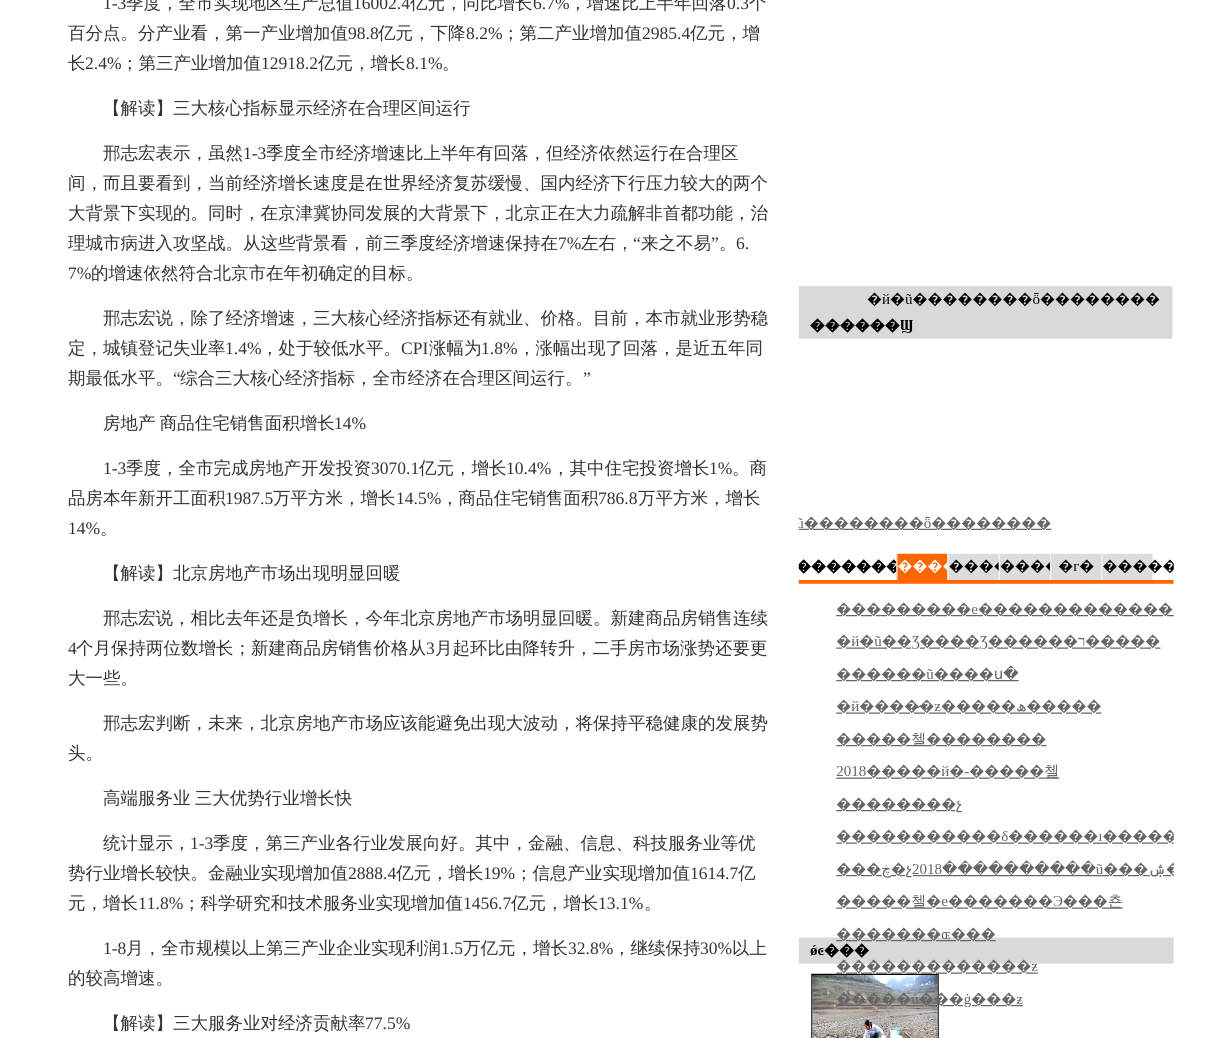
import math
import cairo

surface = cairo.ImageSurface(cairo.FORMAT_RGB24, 1212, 1038)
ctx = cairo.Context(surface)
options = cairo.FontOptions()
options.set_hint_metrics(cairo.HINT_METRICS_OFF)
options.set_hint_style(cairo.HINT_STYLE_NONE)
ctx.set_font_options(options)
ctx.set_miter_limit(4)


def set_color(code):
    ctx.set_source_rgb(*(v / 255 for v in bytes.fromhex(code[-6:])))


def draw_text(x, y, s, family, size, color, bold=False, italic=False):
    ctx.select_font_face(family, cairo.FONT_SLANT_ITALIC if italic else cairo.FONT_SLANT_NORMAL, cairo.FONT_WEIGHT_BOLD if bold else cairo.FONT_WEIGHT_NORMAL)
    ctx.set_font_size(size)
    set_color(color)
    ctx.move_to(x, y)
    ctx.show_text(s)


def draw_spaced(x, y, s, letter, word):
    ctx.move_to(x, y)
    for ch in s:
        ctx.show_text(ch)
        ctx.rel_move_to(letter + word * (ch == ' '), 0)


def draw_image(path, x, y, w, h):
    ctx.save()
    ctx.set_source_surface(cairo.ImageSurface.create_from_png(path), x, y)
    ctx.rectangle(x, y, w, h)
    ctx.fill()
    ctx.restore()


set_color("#ffffff")
ctx.paint()
draw_text(103, 9, "1-3", "Liberation Serif", 17.5, "#333333")
draw_text(126, 9, "季度，全市实现地区生产总值", "WenQuanYi Zen Hei Medium", 17.5, "#333333")
draw_text(353, 9, "16002.4", "Liberation Serif", 17.5, "#333333")
draw_text(410, 9, "亿元，同比增长", "WenQuanYi Zen Hei Medium", 17.5, "#333333")
draw_text(533, 9, "6.7%", "Liberation Serif", 17.5, "#333333")
draw_text(569, 9, "，增速比上半年回落", "WenQuanYi Zen Hei Medium", 17.5, "#333333")
draw_text(727, 9, "0.3", "Liberation Serif", 17.5, "#333333")
draw_text(749, 9, "个", "WenQuanYi Zen Hei Medium", 17.5, "#333333")
draw_text(68, 39, "百分点。分产业看，第一产业增加值", "WenQuanYi Zen Hei Medium", 17.5, "#333333")
draw_text(348, 39, "98.8", "Liberation Serif", 17.5, "#333333")
draw_text(378, 39, "亿元，下降", "WenQuanYi Zen Hei Medium", 17.5, "#333333")
draw_text(466, 39, "8.2%", "Liberation Serif", 17.5, "#333333")
draw_text(502, 39, "；第二产业增加值", "WenQuanYi Zen Hei Medium", 17.5, "#333333")
draw_text(642, 39, "2985.4", "Liberation Serif", 17.5, "#333333")
draw_text(690, 39, "亿元，增", "WenQuanYi Zen Hei Medium", 17.5, "#333333")
draw_text(68, 69, "长", "WenQuanYi Zen Hei Medium", 17.5, "#333333")
draw_text(85, 69, "2.4%", "Liberation Serif", 17.5, "#333333")
draw_text(121, 69, "；第三产业增加值", "WenQuanYi Zen Hei Medium", 17.5, "#333333")
draw_text(261, 69, "12918.2", "Liberation Serif", 17.5, "#333333")
draw_text(318, 69, "亿元，增长", "WenQuanYi Zen Hei Medium", 17.5, "#333333")
draw_text(406, 69, "8.1%", "Liberation Serif", 17.5, "#333333")
draw_text(442, 69, "。", "WenQuanYi Zen Hei Medium", 17.5, "#333333")
draw_text(103, 114, "【解读】三大核心指标显示经济在合理区间运行", "WenQuanYi Zen Hei Medium", 17.5, "#333333")
draw_text(103, 159, "邢志宏表示，虽然", "WenQuanYi Zen Hei Medium", 17.5, "#333333")
draw_text(243, 159, "1-3", "Liberation Serif", 17.5, "#333333")
draw_text(266, 159, "季度全市经济增速比上半年有回落，但经济依然运行在合理区", "WenQuanYi Zen Hei Medium", 17.5, "#333333")
draw_text(68, 189, "间，而且要看到，当前经济增长速度是在世界经济复苏缓慢、国内经济下行压力较大的两个", "WenQuanYi Zen Hei Medium", 17.5, "#333333")
draw_text(68, 219, "大背景下实现的。同时，在京津冀协同发展的大背景下，北京正在大力疏解非首都功能，治", "WenQuanYi Zen Hei Medium", 17.5, "#333333")
draw_text(68, 249, "理城市病进入攻坚战。从这些背景看，前三季度经济增速保持在", "WenQuanYi Zen Hei Medium", 17.5, "#333333")
draw_text(558, 249, "7%", "Liberation Serif", 17.5, "#333333")
draw_text(581, 249, "左右，", "WenQuanYi Zen Hei Medium", 17.5, "#333333")
draw_text(633, 249, "“", "Liberation Serif", 17.5, "#333333")
draw_text(641, 249, "来之不易", "WenQuanYi Zen Hei Medium", 17.5, "#333333")
draw_text(711, 249, "”", "Liberation Serif", 17.5, "#333333")
draw_text(719, 249, "。", "WenQuanYi Zen Hei Medium", 17.5, "#333333")
draw_text(736, 249, "6.", "Liberation Serif", 17.5, "#333333")
draw_text(68, 279, "7%", "Liberation Serif", 17.5, "#333333")
draw_text(91, 279, "的增速依然符合北京市在年初确定的目标。", "WenQuanYi Zen Hei Medium", 17.5, "#333333")
draw_text(103, 324, "邢志宏说，除了经济增速，三大核心经济指标还有就业、价格。目前，本市就业形势稳", "WenQuanYi Zen Hei Medium", 17.5, "#333333")
draw_text(68, 354, "定，城镇登记失业率", "WenQuanYi Zen Hei Medium", 17.5, "#333333")
draw_text(225, 354, "1.4%", "Liberation Serif", 17.5, "#333333")
draw_text(261, 354, "，处于较低水平。", "WenQuanYi Zen Hei Medium", 17.5, "#333333")
draw_text(401, 354, "CPI", "Liberation Serif", 17.5, "#333333")
draw_text(429, 354, "涨幅为", "WenQuanYi Zen Hei Medium", 17.5, "#333333")
draw_text(481, 354, "1.8%", "Liberation Serif", 17.5, "#333333")
draw_text(518, 354, "，涨幅出现了回落，是近五年同", "WenQuanYi Zen Hei Medium", 17.5, "#333333")
draw_text(68, 384, "期最低水平。", "WenQuanYi Zen Hei Medium", 17.5, "#333333")
draw_text(173, 384, "“", "Liberation Serif", 17.5, "#333333")
draw_text(180, 384, "综合三大核心经济指标，全市经济在合理区间运行。", "WenQuanYi Zen Hei Medium", 17.5, "#333333")
draw_text(583, 384, "”", "Liberation Serif", 17.5, "#333333")
ctx.select_font_face("WenQuanYi Zen Hei Medium")
draw_spaced(103, 429, "房地产 商品住宅销售面积增长", 0, -1)
draw_text(334, 429, "14%", "Liberation Serif", 17.5, "#333333")
draw_text(103, 474, "1-3", "Liberation Serif", 17.5, "#333333")
draw_text(126, 474, "季度，全市完成房地产开发投资", "WenQuanYi Zen Hei Medium", 17.5, "#333333")
draw_text(371, 474, "3070.1", "Liberation Serif", 17.5, "#333333")
draw_text(419, 474, "亿元，增长", "WenQuanYi Zen Hei Medium", 17.5, "#333333")
draw_text(506, 474, "10.4%", "Liberation Serif", 17.5, "#333333")
draw_text(552, 474, "，其中住宅投资增长", "WenQuanYi Zen Hei Medium", 17.5, "#333333")
draw_text(709, 474, "1%", "Liberation Serif", 17.5, "#333333")
draw_text(732, 474, "。商", "WenQuanYi Zen Hei Medium", 17.5, "#333333")
draw_text(68, 504, "品房本年新开工面积", "WenQuanYi Zen Hei Medium", 17.5, "#333333")
draw_text(225, 504, "1987.5", "Liberation Serif", 17.5, "#333333")
draw_text(273, 504, "万平方米，增长", "WenQuanYi Zen Hei Medium", 17.5, "#333333")
draw_text(396, 504, "14.5%", "Liberation Serif", 17.5, "#333333")
draw_text(441, 504, "，商品住宅销售面积", "WenQuanYi Zen Hei Medium", 17.5, "#333333")
draw_text(598, 504, "786.8", "Liberation Serif", 17.5, "#333333")
draw_text(638, 504, "万平方米，增长", "WenQuanYi Zen Hei Medium", 17.5, "#333333")
draw_text(68, 534, "14%", "Liberation Serif", 17.5, "#333333")
draw_text(100, 534, "。", "WenQuanYi Zen Hei Medium", 17.5, "#333333")
draw_text(103, 579, "【解读】北京房地产市场出现明显回暖", "WenQuanYi Zen Hei Medium", 17.5, "#333333")
draw_text(103, 624, "邢志宏说，相比去年还是负增长，今年北京房地产市场明显回暖。新建商品房销售连续", "WenQuanYi Zen Hei Medium", 17.5, "#333333")
draw_text(68, 654, "4", "Liberation Serif", 17.5, "#333333")
draw_text(76, 654, "个月保持两位数增长；新建商品房销售价格从", "WenQuanYi Zen Hei Medium", 17.5, "#333333")
draw_text(426, 654, "3", "Liberation Serif", 17.5, "#333333")
draw_text(435, 654, "月起环比由降转升，二手房市场涨势还要更", "WenQuanYi Zen Hei Medium", 17.5, "#333333")
draw_text(68, 684, "大一些。", "WenQuanYi Zen Hei Medium", 17.5, "#333333")
draw_text(103, 729, "邢志宏判断，未来，北京房地产市场应该能避免出现大波动，将保持平稳健康的发展势", "WenQuanYi Zen Hei Medium", 17.5, "#333333")
draw_text(68, 759, "头。", "WenQuanYi Zen Hei Medium", 17.5, "#333333")
draw_spaced(103, 804, "高端服务业 三大优势行业增长快", 0, -1)
draw_text(103, 849, "统计显示，", "WenQuanYi Zen Hei Medium", 17.5, "#333333")
draw_text(190, 849, "1-3", "Liberation Serif", 17.5, "#333333")
draw_text(213, 849, "季度，第三产业各行业发展向好。其中，金融、信息、科技服务业等优", "WenQuanYi Zen Hei Medium", 17.5, "#333333")
draw_text(68, 879, "势行业增长较快。金融业实现增加值", "WenQuanYi Zen Hei Medium", 17.5, "#333333")
draw_text(348, 879, "2888.4", "Liberation Serif", 17.5, "#333333")
draw_text(396, 879, "亿元，增长", "WenQuanYi Zen Hei Medium", 17.5, "#333333")
draw_text(483, 879, "19%", "Liberation Serif", 17.5, "#333333")
draw_text(515, 879, "；信息产业实现增加值", "WenQuanYi Zen Hei Medium", 17.5, "#333333")
draw_text(690, 879, "1614.7", "Liberation Serif", 17.5, "#333333")
draw_text(738, 879, "亿", "WenQuanYi Zen Hei Medium", 17.5, "#333333")
draw_text(68, 909, "元，增长", "WenQuanYi Zen Hei Medium", 17.5, "#333333")
draw_text(138, 909, "11.8%", "Liberation Serif", 17.5, "#333333")
draw_text(183, 909, "；科学研究和技术服务业实现增加值", "WenQuanYi Zen Hei Medium", 17.5, "#333333")
draw_text(463, 909, "1456.7", "Liberation Serif", 17.5, "#333333")
draw_text(511, 909, "亿元，增长", "WenQuanYi Zen Hei Medium", 17.5, "#333333")
draw_text(598, 909, "13.1%", "Liberation Serif", 17.5, "#333333")
draw_text(644, 909, "。", "WenQuanYi Zen Hei Medium", 17.5, "#333333")
draw_text(103, 954, "1-8", "Liberation Serif", 17.5, "#333333")
draw_text(126, 954, "月，全市规模以上第三产业企业实现利润", "WenQuanYi Zen Hei Medium", 17.5, "#333333")
draw_text(441, 954, "1.5", "Liberation Serif", 17.5, "#333333")
draw_text(463, 954, "万亿元，增长", "WenQuanYi Zen Hei Medium", 17.5, "#333333")
draw_text(568, 954, "32.8%", "Liberation Serif", 17.5, "#333333")
draw_text(613, 954, "，继续保持", "WenQuanYi Zen Hei Medium", 17.5, "#333333")
draw_text(700, 954, "30%", "Liberation Serif", 17.5, "#333333")
draw_text(732, 954, "以上", "WenQuanYi Zen Hei Medium", 17.5, "#333333")
draw_text(68, 984, "的较高增速。", "WenQuanYi Zen Hei Medium", 17.5, "#333333")
draw_text(103, 1029, "【解读】三大服务业对经济贡献率", "WenQuanYi Zen Hei Medium", 17.5, "#333333")
draw_text(365, 1029, "77.5%", "Liberation Serif", 17.5, "#333333")
draw_image("assets/img1.png", 798, 286, 376, 752)
surface.write_to_png("output.png")
